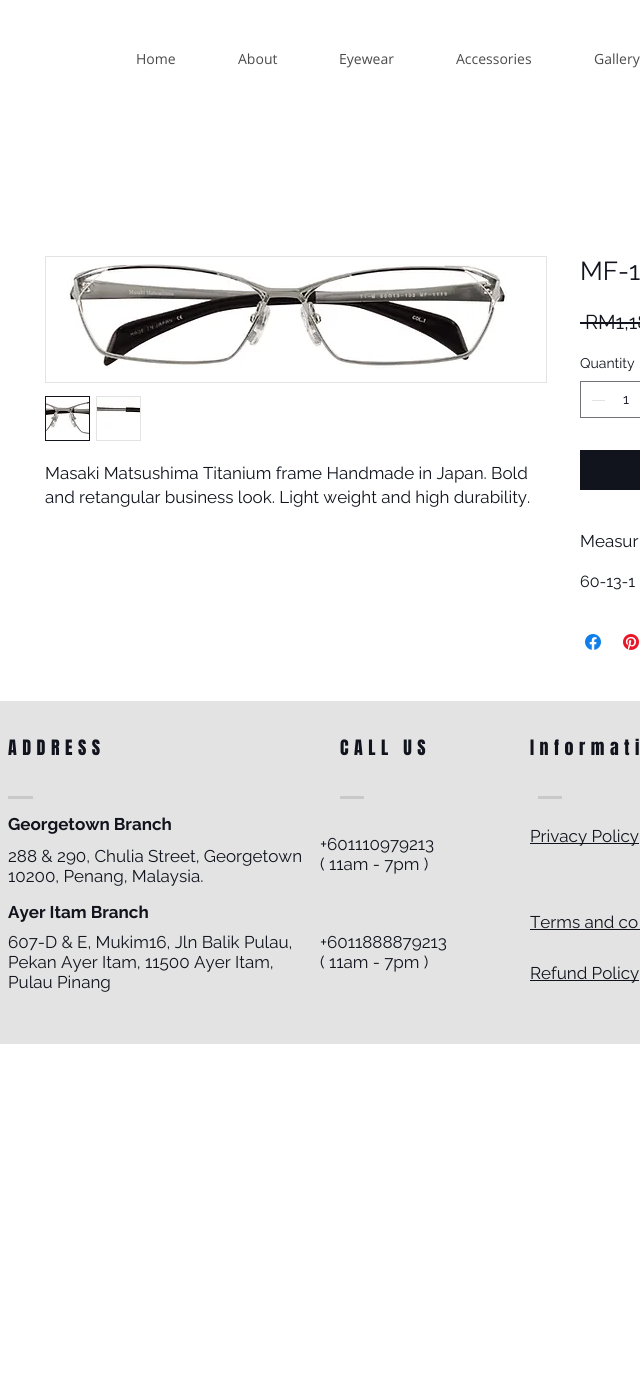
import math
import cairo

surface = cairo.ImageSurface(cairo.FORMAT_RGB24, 640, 1395)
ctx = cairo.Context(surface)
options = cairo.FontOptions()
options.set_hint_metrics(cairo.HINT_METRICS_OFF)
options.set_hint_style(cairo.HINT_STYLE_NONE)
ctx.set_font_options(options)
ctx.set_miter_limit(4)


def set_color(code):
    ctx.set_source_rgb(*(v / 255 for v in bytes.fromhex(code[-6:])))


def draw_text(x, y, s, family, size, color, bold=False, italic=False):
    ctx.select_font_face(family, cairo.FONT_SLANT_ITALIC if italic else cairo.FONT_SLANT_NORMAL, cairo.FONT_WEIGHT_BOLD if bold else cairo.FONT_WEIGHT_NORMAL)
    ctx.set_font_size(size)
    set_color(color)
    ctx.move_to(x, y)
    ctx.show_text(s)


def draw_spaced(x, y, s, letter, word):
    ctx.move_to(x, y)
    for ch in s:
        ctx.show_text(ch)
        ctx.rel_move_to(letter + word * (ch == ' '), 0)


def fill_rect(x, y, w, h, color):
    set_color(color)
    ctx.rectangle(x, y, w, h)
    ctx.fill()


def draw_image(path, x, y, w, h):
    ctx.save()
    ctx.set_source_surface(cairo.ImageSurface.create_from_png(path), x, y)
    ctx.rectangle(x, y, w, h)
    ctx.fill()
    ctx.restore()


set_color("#ffffff")
ctx.paint()
draw_text(136, 64, "Home", "Open Sans", 14, "#4b4b4b")
draw_text(238, 64, "About", "Open Sans", 14, "#4b4b4b")
draw_text(339, 64, "Eyewear", "Open Sans", 14, "#4b4b4b")
draw_text(456, 64, "Accessories", "Open Sans", 14, "#4b4b4b")
draw_text(594, 64, "Gallery", "Open Sans", 14, "#4b4b4b")
ctx.rectangle(45.5, 256.5, 501, 126)
set_color("#e3e3e3")
ctx.set_line_width(1)
ctx.stroke()
draw_image("assets/img1.png", 67, 264, 440, 105)
ctx.rectangle(45.5, 396.5, 44, 44)
set_color("#11141d")
ctx.stroke()
draw_image("assets/img2.png", 46, 397, 43, 43)
fill_rect(96, 396, 45, 45, "#e3e3e3")
draw_image("assets/img3.png", 97, 397, 43, 43)
draw_text(45, 479, "Masaki Matsushima Titanium frame Handmade in Japan. Bold", "Raleway", 17, "#11141d")
draw_text(45, 503, "and retangular business look. Light weight and high durability.", "Raleway", 17, "#11141d")
draw_text(580, 280, "MF-1", "Raleway", 26, "#11141d")
draw_text(585, 329, "RM1,18", "Raleway", 20, "#11141d")
fill_rect(580, 322, 60, 2, "#11141d")
draw_text(580, 368, "Quantity", "Raleway", 14, "#11141d")
ctx.rectangle(580.5, 381.5, 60, 36)
set_color("#707277")
ctx.stroke()
fill_rect(592, 400, 13, 1, "#e3e3e3")
draw_text(623, 404, "1", "Raleway", 14, "#11141d")
fill_rect(580, 450, 60, 40, "#11141d")
draw_text(580, 547, "Measur", "Raleway", 17, "#11141d")
draw_text(580, 587, "60-13-1", "Raleway", 16, "#11141d")
draw_image("assets/img4.png", 585, 634, 16, 16)
draw_image("assets/img5.png", 623, 634, 16, 16)
fill_rect(0, 701, 640, 343, "#e3e3e3")
ctx.select_font_face("Anton")
ctx.set_font_size(18)
set_color("#11141d")
draw_spaced(8, 755, "ADDRESS", 5.5, 0)
draw_spaced(340, 755, "CALL US", 5.5, 0)
draw_spaced(530, 755, "Informati", 5.5, 0)
fill_rect(8, 796, 25, 3, "#c9c9c9")
fill_rect(340, 796, 24, 3, "#c9c9c9")
fill_rect(538, 796, 24, 3, "#c9c9c9")
draw_text(8, 830, "Georgetown Branch", "Raleway", 17, "#11141d", bold=True)
draw_text(8, 862, "288 & 290, Chulia Street, Georgetown", "Raleway", 17, "#11141d")
draw_text(8, 882, "10200, Penang, Malaysia.", "Raleway", 17, "#11141d")
draw_text(320, 850, "+601110979213", "Raleway", 17, "#11141d")
draw_text(320, 870, "( 11am - 7pm )", "Raleway", 17, "#11141d")
fill_rect(530, 843, 109, 1, "#11141d")
draw_text(530, 842, "Privacy Policy", "Raleway", 17, "#11141d")
draw_text(8, 918, "Ayer Itam Branch", "Raleway", 17, "#11141d", bold=True)
draw_text(530, 928, "Terms and co", "Raleway", 17, "#11141d")
fill_rect(530, 929, 110, 1, "#11141d")
draw_text(8, 948, "607-D & E, Mukim16, Jln Balik Pulau,", "Raleway", 17, "#11141d")
draw_text(8, 968, "Pekan Ayer Itam, 11500 Ayer Itam,", "Raleway", 17, "#11141d")
draw_text(8, 988, "Pulau Pinang", "Raleway", 17, "#11141d")
draw_text(320, 948, "+6011888879213", "Raleway", 17, "#11141d")
draw_text(320, 968, "( 11am - 7pm )", "Raleway", 17, "#11141d")
fill_rect(530, 980, 109, 1, "#11141d")
draw_text(530, 979, "Refund Policy", "Raleway", 17, "#11141d")
surface.write_to_png("output.png")
